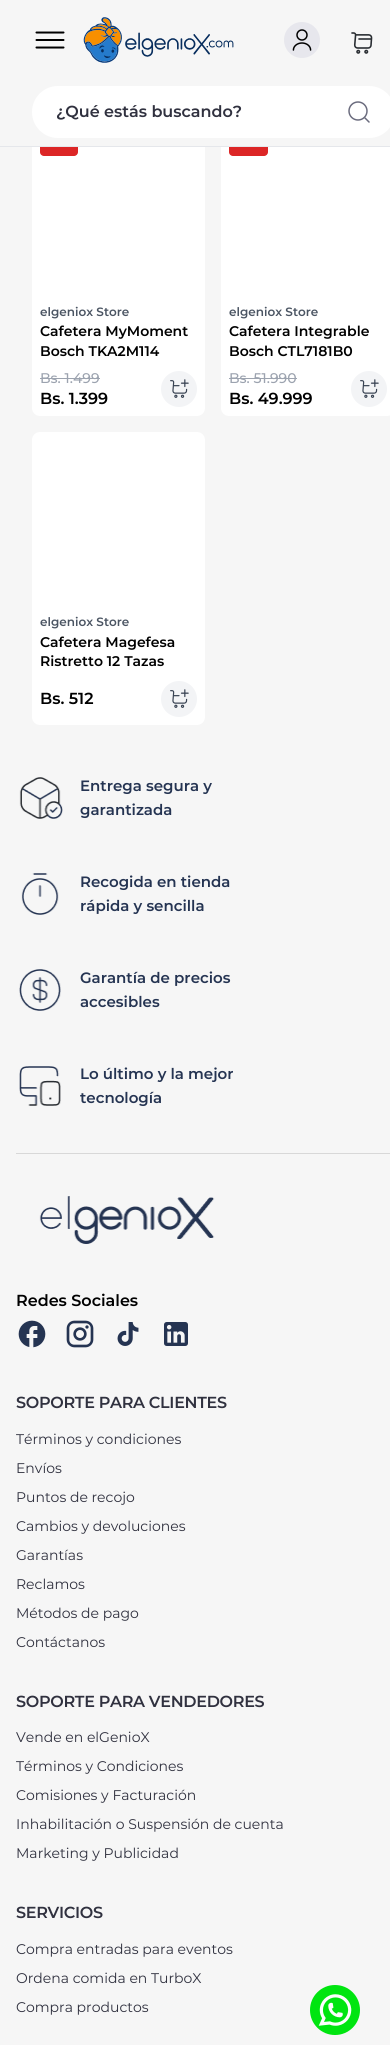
import math
import cairo

surface = cairo.ImageSurface(cairo.FORMAT_RGB24, 390, 2045)
ctx = cairo.Context(surface)
options = cairo.FontOptions()
options.set_hint_metrics(cairo.HINT_METRICS_OFF)
options.set_hint_style(cairo.HINT_STYLE_NONE)
ctx.set_font_options(options)
ctx.set_miter_limit(4)


def set_color(code):
    ctx.set_source_rgb(*(v / 255 for v in bytes.fromhex(code[-6:])))


def draw_text(x, y, s, family, size, color, bold=False, italic=False):
    ctx.select_font_face(family, cairo.FONT_SLANT_ITALIC if italic else cairo.FONT_SLANT_NORMAL, cairo.FONT_WEIGHT_BOLD if bold else cairo.FONT_WEIGHT_NORMAL)
    ctx.set_font_size(size)
    set_color(color)
    ctx.move_to(x, y)
    ctx.show_text(s)


def draw_spaced(x, y, s, letter, word):
    ctx.move_to(x, y)
    for ch in s:
        ctx.show_text(ch)
        ctx.rel_move_to(letter + word * (ch == ' '), 0)


def fill_rect(x, y, w, h, color):
    set_color(color)
    ctx.rectangle(x, y, w, h)
    ctx.fill()


def rounded_rect(x, y, w, h, r):
    ctx.new_sub_path()
    for i, (u, v) in enumerate([(x + w - r, y + h - r), (x + r, y + h - r), (x + r, y + r), (x + w - r, y + r)]):
        ctx.arc(u, v, r, i * math.pi / 2, (i + 1) * math.pi / 2)
    ctx.close_path()


def draw_image(path, x, y, w, h):
    ctx.save()
    ctx.set_source_surface(cairo.ImageSurface.create_from_png(path), x, y)
    ctx.rectangle(x, y, w, h)
    ctx.fill()
    ctx.restore()


set_color("#f6f6f6")
ctx.paint()
set_color("#ffffff")
rounded_rect(32, 122, 173, 294, 8)
ctx.fill()
set_color("#dc2626")
rounded_rect(40, 130, 38, 26, 4)
ctx.fill()
set_color("#ffffff")
rounded_rect(221, 122, 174, 294, 8)
ctx.fill()
set_color("#dc2626")
rounded_rect(229, 130, 39, 26, 4)
ctx.fill()
fill_rect(32, 122, 358, 24, "#f6f6f6")
fill_rect(0, 146, 390, 1, "#e5e7eb")
ctx.new_path()
ctx.move_to(36.5, 32.5)
ctx.line_to(63.5, 32.5)
ctx.move_to(36.5, 40)
ctx.line_to(63.5, 40)
ctx.move_to(36.5, 47.5)
ctx.line_to(63.5, 47.5)
set_color("#000000")
ctx.set_line_cap(cairo.LINE_CAP_ROUND)
ctx.stroke()
draw_image("assets/img1.png", 83, 17, 151, 46)
set_color("#e7e7ed")
ctx.arc(302, 40, 18, 0, 2 * math.pi)
ctx.fill()
draw_image("assets/img2.png", 292, 29, 20, 22)
draw_image("assets/img3.png", 351, 32, 22, 22)
set_color("#ffffff")
rounded_rect(32, 86, 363, 52, 26)
ctx.fill()
draw_text(56, 117, "¿Qué estás buscando?", "Montserrat SemiBold", 16, "#30313f")
draw_image("assets/img4.png", 348, 101, 22, 22)
draw_text(40, 316, "elgeniox Store", "Montserrat SemiBold", 12, "#4b5563")
draw_text(40, 336, "Cafetera MyMoment", "Montserrat SemiBold", 14, "#000000")
draw_text(40, 356, "Bosch TKA2M114", "Montserrat SemiBold", 14, "#000000")
draw_text(40, 383, "Bs. 1.499", "Montserrat Medium", 14, "#9ca3af")
fill_rect(40, 378, 60, 1, "#9ca3af")
draw_text(40, 404, "Bs. 1.399", "Montserrat SemiBold", 16, "#000000")
set_color("#f3f4f6")
ctx.new_path()
ctx.arc(179, 389, 18, 0, 2 * math.pi)
ctx.fill()
draw_image("assets/img5.png", 170, 379, 19, 19)
draw_text(229, 316, "elgeniox Store", "Montserrat SemiBold", 12, "#4b5563")
draw_text(229, 336, "Cafetera Integrable", "Montserrat SemiBold", 14, "#000000")
draw_text(229, 356, "Bosch CTL7181B0", "Montserrat SemiBold", 14, "#000000")
draw_text(229, 383, "Bs. 51.990", "Montserrat Medium", 14, "#9ca3af")
fill_rect(229, 378, 68, 1, "#9ca3af")
draw_text(229, 404, "Bs. 49.999", "Montserrat SemiBold", 16, "#000000")
set_color("#f3f4f6")
ctx.new_path()
ctx.arc(369, 389, 18, 0, 2 * math.pi)
ctx.fill()
draw_image("assets/img5.png", 360, 379, 19, 19)
set_color("#ffffff")
rounded_rect(32, 432, 173, 293, 8)
ctx.fill()
draw_text(40, 626, "elgeniox Store", "Montserrat SemiBold", 12, "#4b5563")
draw_text(40, 647, "Cafetera Magefesa", "Montserrat SemiBold", 14, "#000000")
draw_text(40, 666, "Ristretto 12 Tazas", "Montserrat SemiBold", 14, "#000000")
draw_text(40, 704, "Bs. 512", "Montserrat SemiBold", 16, "#000000")
set_color("#f3f4f6")
ctx.new_path()
ctx.arc(179, 699, 18, 0, 2 * math.pi)
ctx.fill()
draw_image("assets/img5.png", 170, 689, 19, 19)
draw_image("assets/img6.png", 19, 777, 44, 42)
draw_text(80, 791, "Entrega segura y", "Montserrat SemiBold", 15, "#253452")
draw_text(80, 815, "garantizada", "Montserrat SemiBold", 15, "#253452")
draw_image("assets/img7.png", 21, 873, 38, 42)
draw_text(80, 887, "Recogida en tienda", "Montserrat SemiBold", 15, "#253452")
draw_text(80, 911, "rápida y sencilla", "Montserrat SemiBold", 15, "#253452")
draw_image("assets/img8.png", 19, 969, 42, 42)
draw_text(80, 983, "Garantía de precios", "Montserrat SemiBold", 15, "#253452")
draw_text(80, 1007, "accesibles", "Montserrat SemiBold", 15, "#253452")
draw_image("assets/img9.png", 19, 1066, 42, 40)
draw_text(80, 1079, "Lo último y la mejor", "Montserrat SemiBold", 15, "#253452")
draw_text(80, 1103, "tecnología", "Montserrat SemiBold", 15, "#253452")
fill_rect(16, 1153, 374, 1, "#d8d8d8")
draw_image("assets/img10.png", 39, 1196, 176, 48)
draw_text(16, 1306, "Redes Sociales", "Montserrat SemiBold", 16, "#000000")
draw_image("assets/img11.png", 18, 1320, 28, 28)
draw_image("assets/img12.png", 66, 1320, 28, 28)
draw_image("assets/img13.png", 117, 1322, 22, 24)
draw_image("assets/img14.png", 164, 1322, 24, 24)
set_color("#30313f")
draw_spaced(16, 1408, "SOPORTE PARA CLIENTES", -0.3, 0)
draw_text(16, 1444, "Términos y condiciones", "Montserrat", 14, "#30313f")
draw_text(16, 1473, "Envíos", "Montserrat", 14, "#30313f")
draw_text(16, 1502, "Puntos de recojo", "Montserrat", 14, "#30313f")
draw_text(16, 1531, "Cambios y devoluciones", "Montserrat", 14, "#30313f")
draw_text(16, 1560, "Garantías", "Montserrat", 14, "#30313f")
draw_text(16, 1589, "Reclamos", "Montserrat", 14, "#30313f")
draw_text(16, 1618, "Métodos de pago", "Montserrat", 14, "#30313f")
draw_text(16, 1647, "Contáctanos", "Montserrat", 14, "#30313f")
ctx.select_font_face("Montserrat SemiBold")
ctx.set_font_size(16)
draw_spaced(16, 1707, "SOPORTE PARA VENDEDORES", -0.3, 0)
draw_text(16, 1742, "Vende en elGenioX", "Montserrat", 14, "#30313f")
draw_text(16, 1771, "Términos y Condiciones", "Montserrat", 14, "#30313f")
draw_text(16, 1800, "Comisiones y Facturación", "Montserrat", 14, "#30313f")
draw_text(16, 1829, "Inhabilitación o Suspensión de cuenta", "Montserrat", 14, "#30313f")
draw_text(16, 1858, "Marketing y Publicidad", "Montserrat", 14, "#30313f")
ctx.select_font_face("Montserrat SemiBold")
ctx.set_font_size(16)
draw_spaced(16, 1918, "SERVICIOS", -0.3, 0)
draw_text(16, 1954, "Compra entradas para eventos", "Montserrat", 14, "#30313f")
draw_text(16, 1983, "Ordena comida en TurboX", "Montserrat", 14, "#30313f")
draw_text(16, 2012, "Compra productos", "Montserrat", 14, "#30313f")
draw_image("assets/img15.png", 310, 1985, 50, 50)
surface.write_to_png("output.png")
